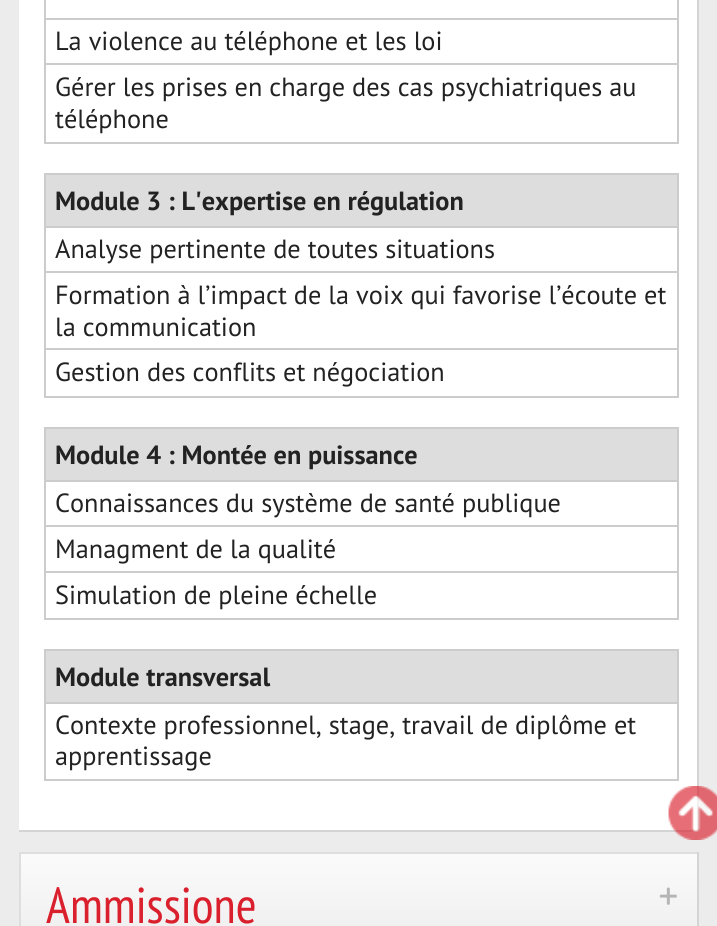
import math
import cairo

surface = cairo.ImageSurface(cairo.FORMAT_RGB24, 717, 926)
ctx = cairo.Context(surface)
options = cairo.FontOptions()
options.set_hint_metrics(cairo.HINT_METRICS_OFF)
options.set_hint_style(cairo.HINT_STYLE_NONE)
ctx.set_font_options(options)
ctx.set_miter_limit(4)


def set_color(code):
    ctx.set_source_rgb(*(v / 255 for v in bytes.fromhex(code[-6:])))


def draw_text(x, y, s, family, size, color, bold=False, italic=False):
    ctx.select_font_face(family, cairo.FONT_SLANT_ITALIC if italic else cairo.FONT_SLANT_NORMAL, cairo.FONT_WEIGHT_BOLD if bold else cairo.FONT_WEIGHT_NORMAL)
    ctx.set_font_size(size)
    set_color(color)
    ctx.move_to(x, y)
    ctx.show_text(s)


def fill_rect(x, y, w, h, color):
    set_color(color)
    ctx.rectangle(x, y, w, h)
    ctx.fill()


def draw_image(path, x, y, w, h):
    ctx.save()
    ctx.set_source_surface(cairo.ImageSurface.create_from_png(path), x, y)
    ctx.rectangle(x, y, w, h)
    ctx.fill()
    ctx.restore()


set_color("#ececec")
ctx.paint()
fill_rect(19, 0, 678, 830, "#ffffff")
fill_rect(697, 0, 2, 831, "#d4d4d4")
fill_rect(19, 830, 679, 2, "#d4d4d4")
fill_rect(44, 18, 635, 2, "#cccccc")
fill_rect(44, 63, 635, 2, "#cccccc")
fill_rect(677, 63, 2, 81, "#cccccc")
fill_rect(677, 0, 2, 65, "#cccccc")
fill_rect(44, 142, 635, 2, "#cccccc")
fill_rect(44, 63, 2, 81, "#cccccc")
fill_rect(44, 0, 2, 65, "#cccccc")
draw_text(55, 50, "La violence au téléphone et les loi", "PT Sans", 26.3, "#222222")
draw_text(55, 96, "Gérer les prises en charge des cas psychiatriques au", "PT Sans", 26.3, "#222222")
draw_text(55, 128, "téléphone", "PT Sans", 26.3, "#222222")
fill_rect(46, 175, 631, 51, "#dddddd")
fill_rect(44, 173, 635, 2, "#cccccc")
fill_rect(44, 226, 635, 2, "#cccccc")
fill_rect(44, 271, 635, 2, "#cccccc")
fill_rect(44, 348, 635, 2, "#cccccc")
fill_rect(677, 348, 2, 49, "#cccccc")
fill_rect(677, 271, 2, 79, "#cccccc")
fill_rect(677, 226, 2, 47, "#cccccc")
fill_rect(677, 173, 2, 55, "#cccccc")
fill_rect(44, 396, 635, 2, "#cccccc")
fill_rect(44, 348, 2, 49, "#cccccc")
fill_rect(44, 271, 2, 79, "#cccccc")
fill_rect(44, 226, 2, 47, "#cccccc")
fill_rect(44, 173, 2, 55, "#cccccc")
draw_text(55, 210, "Module 3 : L'expertise en régulation", "PT Sans", 26.3, "#222222", bold=True)
draw_text(55, 258, "Analyse pertinente de toutes situations", "PT Sans", 26.3, "#222222")
draw_text(55, 304, "Formation à l’impact de la voix qui favorise l’écoute et", "PT Sans", 26.3, "#222222")
draw_text(55, 336, "la communication", "PT Sans", 26.3, "#222222")
draw_text(55, 381, "Gestion des conflits et négociation", "PT Sans", 26.3, "#222222")
fill_rect(46, 429, 631, 51, "#dddddd")
fill_rect(44, 427, 635, 2, "#cccccc")
fill_rect(44, 480, 635, 2, "#cccccc")
fill_rect(44, 525, 635, 2, "#cccccc")
fill_rect(44, 571, 635, 2, "#cccccc")
fill_rect(677, 571, 2, 49, "#cccccc")
fill_rect(677, 525, 2, 47, "#cccccc")
fill_rect(677, 480, 2, 47, "#cccccc")
fill_rect(677, 427, 2, 54, "#cccccc")
fill_rect(44, 618, 635, 2, "#cccccc")
fill_rect(44, 571, 2, 49, "#cccccc")
fill_rect(44, 525, 2, 47, "#cccccc")
fill_rect(44, 480, 2, 47, "#cccccc")
fill_rect(44, 427, 2, 54, "#cccccc")
draw_text(55, 464, "Module 4 : Montée en puissance", "PT Sans", 26.3, "#222222", bold=True)
draw_text(55, 512, "Connaissances du système de santé publique", "PT Sans", 26.3, "#222222")
draw_text(55, 558, "Managment de la qualité", "PT Sans", 26.3, "#222222")
draw_text(55, 604, "Simulation de pleine échelle", "PT Sans", 26.3, "#222222")
fill_rect(46, 651, 631, 51, "#dddddd")
fill_rect(44, 649, 635, 2, "#cccccc")
fill_rect(44, 702, 635, 2, "#cccccc")
fill_rect(677, 702, 2, 79, "#cccccc")
fill_rect(677, 649, 2, 55, "#cccccc")
fill_rect(44, 779, 635, 2, "#cccccc")
fill_rect(44, 702, 2, 79, "#cccccc")
fill_rect(44, 649, 2, 55, "#cccccc")
draw_text(55, 686, "Module transversal", "PT Sans", 26.3, "#222222", bold=True)
draw_text(55, 734, "Contexte professionnel, stage, travail de diplôme et", "PT Sans", 26.3, "#222222")
draw_text(55, 765, "apprentissage", "PT Sans", 26.3, "#222222")
gradient = cairo.LinearGradient(359, 854, 359, 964)
gradient.add_color_stop_rgba(0, 0.984, 0.984, 0.984, 1)
gradient.add_color_stop_rgba(1, 0.922, 0.922, 0.922, 1)
ctx.set_source(gradient)
ctx.rectangle(21, 854, 676, 72)
ctx.fill()
fill_rect(19, 852, 679, 2, "#dedede")
fill_rect(697, 852, 2, 74, "#d4d4d4")
fill_rect(19, 852, 2, 74, "#dedede")
draw_text(46, 923, "Ammissione", "PT Sans Narrow", 50.5, "#da202c")
draw_image("assets/img1.png", 659, 887, 18, 18)
draw_image("assets/img2.png", 668, 786, 49, 54)
surface.write_to_png("output.png")
